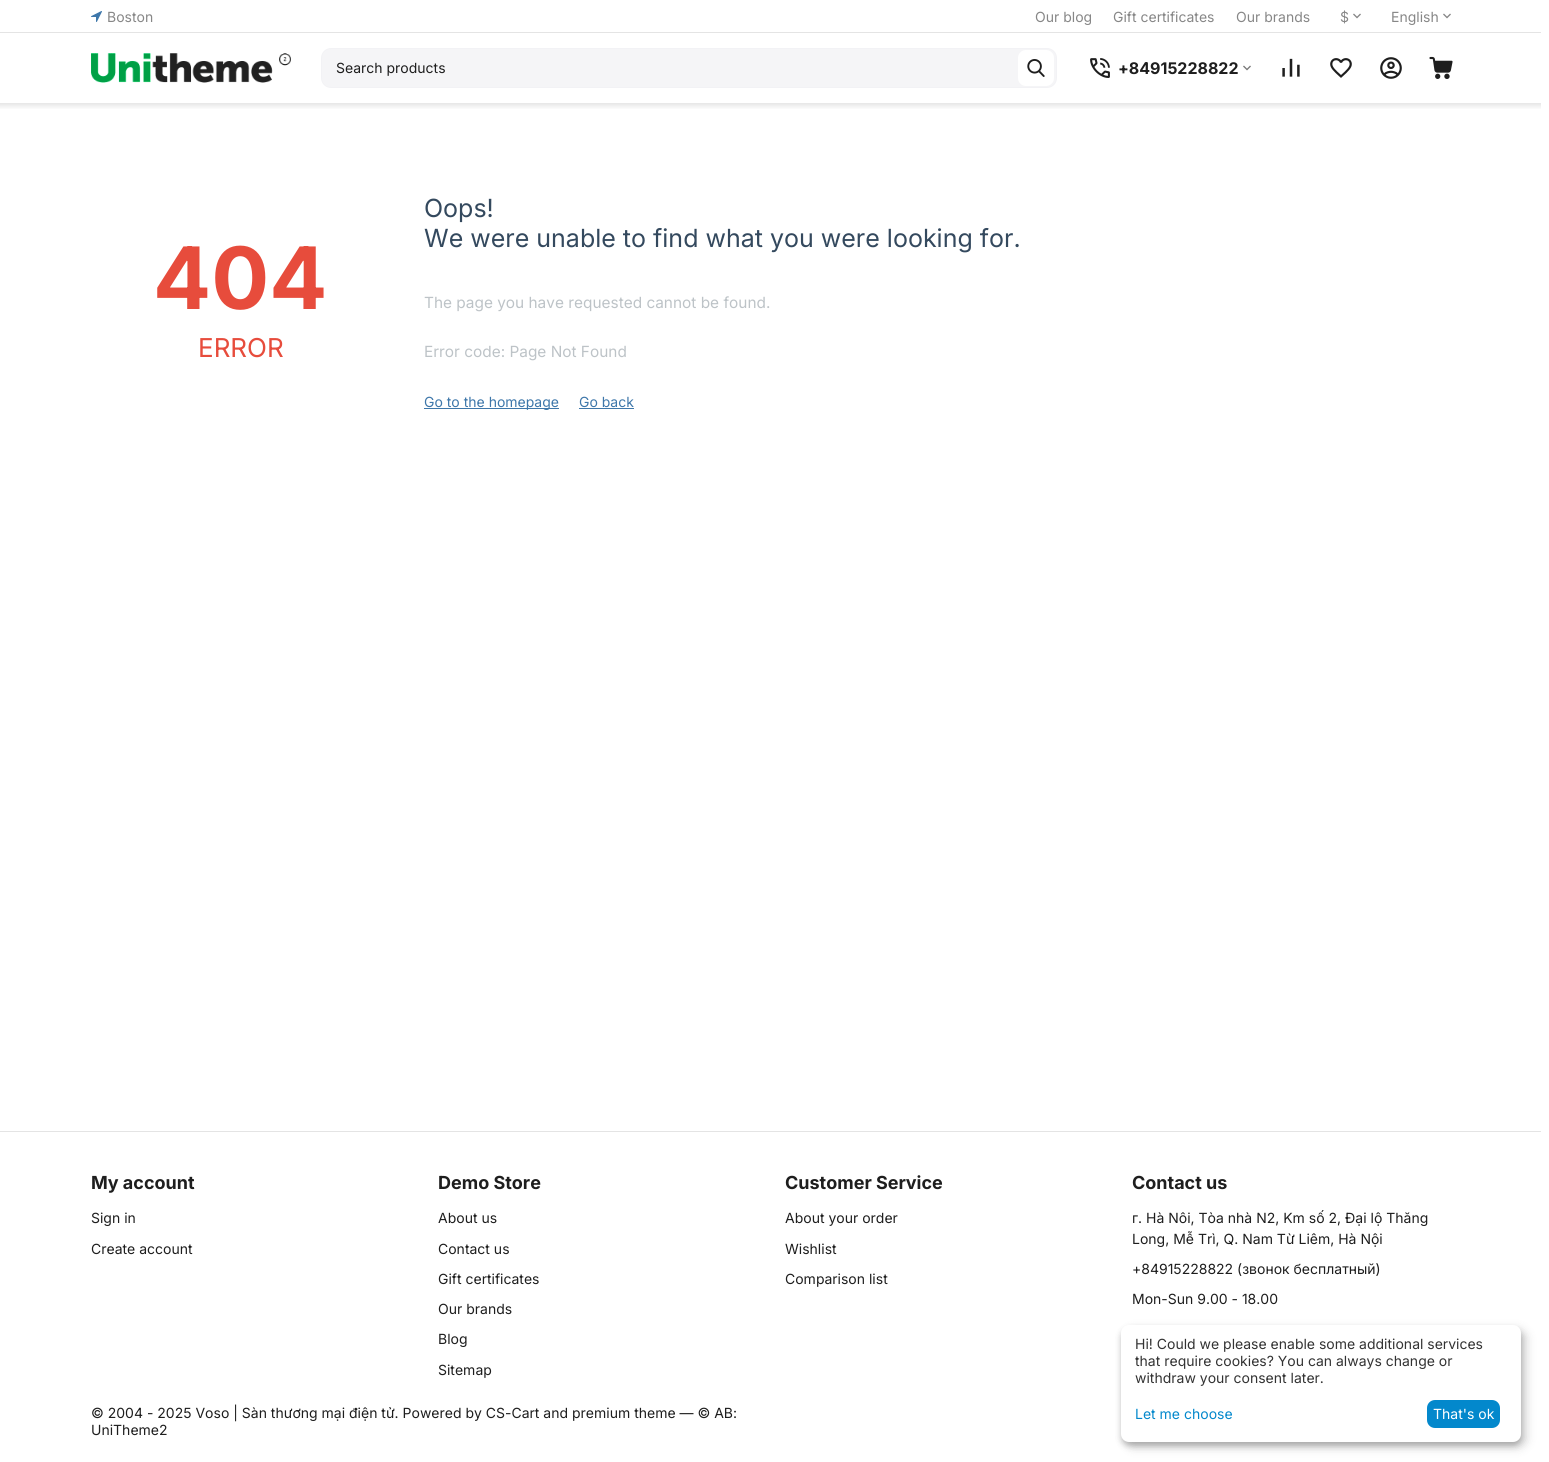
import math
import cairo

surface = cairo.ImageSurface(cairo.FORMAT_RGB24, 1549, 1462)
ctx = cairo.Context(surface)
options = cairo.FontOptions()
options.set_hint_metrics(cairo.HINT_METRICS_OFF)
options.set_hint_style(cairo.HINT_STYLE_NONE)
ctx.set_font_options(options)
ctx.set_miter_limit(4)


def set_color(code):
    ctx.set_source_rgb(*(v / 255 for v in bytes.fromhex(code[-6:])))


def draw_text(x, y, s, family, size, color, bold=False, italic=False):
    ctx.select_font_face(family, cairo.FONT_SLANT_ITALIC if italic else cairo.FONT_SLANT_NORMAL, cairo.FONT_WEIGHT_BOLD if bold else cairo.FONT_WEIGHT_NORMAL)
    ctx.set_font_size(size)
    set_color(color)
    ctx.move_to(x, y)
    ctx.show_text(s)


def fill_rect(x, y, w, h, color):
    set_color(color)
    ctx.rectangle(x, y, w, h)
    ctx.fill()


def rounded_rect(x, y, w, h, r):
    ctx.new_sub_path()
    for i, (u, v) in enumerate([(x + w - r, y + h - r), (x + r, y + h - r), (x + r, y + r), (x + w - r, y + r)]):
        ctx.arc(u, v, r, i * math.pi / 2, (i + 1) * math.pi / 2)
    ctx.close_path()


def draw_shadow(x, y, w, h, r, blur, alpha):
    ctx.push_group_with_content(cairo.CONTENT_ALPHA)
    ctx.set_operator(cairo.OPERATOR_SOURCE)
    for i in range(15, -16, -2):
        e = blur * i / 6
        if min(w, h) + 2 * e > 0:
            ctx.set_source_rgba(0, 0, 0, alpha * math.erfc((i - 1) / 8.5) / 2)
            rounded_rect(x - e, y - e, w + 2 * e, h + 2 * e, max(0, min(r + e + blur * .6, min(w, h) / 2 + e)))
            ctx.fill()
    ctx.mask(ctx.pop_group())


def draw_image(path, x, y, w, h):
    ctx.save()
    ctx.set_source_surface(cairo.ImageSurface.create_from_png(path), x, y)
    ctx.rectangle(x, y, w, h)
    ctx.fill()
    ctx.restore()


set_color("#ffffff")
ctx.paint()
fill_rect(0, 32, 1541, 1, "#e4e4e4")
draw_image("assets/img1.png", 91, 11, 11, 11)
draw_text(107, 22, "Boston", "Inter", 14, "#878787")
draw_text(1035, 22, "Our blog", "Inter", 14, "#878787")
draw_text(1113, 22, "Gift certificates", "Inter", 14, "#878787")
draw_text(1236, 22, "Our brands", "Inter", 14, "#878787")
draw_text(1340, 22, "$", "Inter", 14, "#878787")
draw_image("assets/img2.png", 1353, 13, 8, 6)
draw_text(1391, 22, "English", "Inter", 14, "#878787")
draw_image("assets/img2.png", 1443, 13, 8, 6)
draw_image("assets/img3.png", 91, 53, 200, 30)
set_color("#f5f5f7")
rounded_rect(321.5, 48.5, 735, 39, 9.5)
ctx.fill_preserve()
set_color("#f2f2f5")
ctx.set_line_width(1)
ctx.stroke()
draw_text(336, 73, "Search products", "Inter", 14, "#1e1e1e")
set_color("#ffffff")
rounded_rect(1018, 50, 36, 36, 8)
ctx.fill()
draw_image("assets/img4.png", 1027, 59, 18, 18)
draw_image("assets/img5.png", 1090, 58, 20, 20)
draw_text(1118, 74, "+84915228822", "Inter", 16, "#1e1e1e", bold=True)
draw_image("assets/img6.png", 1243, 65, 8, 6)
draw_image("assets/img7.png", 1282, 58, 18, 19)
draw_image("assets/img8.png", 1330, 58, 22, 20)
draw_image("assets/img9.png", 1380, 57, 22, 22)
draw_image("assets/img10.png", 1429, 56, 24, 23)
gradient = cairo.LinearGradient(771, 103, 771, 110)
gradient.add_color_stop_rgba(0, 0.902, 0.902, 0.902, 1)
gradient.add_color_stop_rgba(1, 1, 1, 1, 1)
ctx.set_source(gradient)
ctx.rectangle(0, 103, 1541, 6)
ctx.fill()
draw_text(153, 309, "404", "Inter", 86, "#e74c3c", bold=True)
draw_text(198, 357, "ERROR", "Inter", 26, "#e74c3c")
draw_text(424, 217, "Oops!", "Inter", 25, "#34495e")
draw_text(424, 247, "We were unable to find what you were looking for.", "Inter", 25, "#34495e")
draw_text(424, 308, "The page you have requested cannot be found.", "Inter", 15.4, "#bdc3c7")
draw_text(424, 357, "Error code: Page Not Found", "Inter", 15.4, "#bdc3c7")
fill_rect(424, 408, 135, 1, "#3e77aa")
draw_text(424, 407, "Go to the homepage", "Inter", 14, "#3e77aa")
draw_text(579, 407, "Go back", "Inter", 14, "#3e77aa")
fill_rect(579, 408, 55, 1, "#3e77aa")
fill_rect(0, 1131, 1541, 1, "#e4e4e4")
draw_text(91, 1189, "My account", "Inter", 18, "#1e1e1e", bold=True)
draw_text(91, 1223, "Sign in", "Inter", 14, "#1e1e1e")
draw_text(91, 1254, "Create account", "Inter", 14, "#1e1e1e")
draw_text(438, 1189, "Demo Store", "Inter", 18, "#1e1e1e", bold=True)
draw_text(438, 1223, "About us", "Inter", 14, "#1e1e1e")
draw_text(438, 1254, "Contact us", "Inter", 14, "#1e1e1e")
draw_text(438, 1284, "Gift certificates", "Inter", 14, "#1e1e1e")
draw_text(438, 1314, "Our brands", "Inter", 14, "#1e1e1e")
draw_text(438, 1344, "Blog", "Inter", 14, "#1e1e1e")
draw_text(438, 1375, "Sitemap", "Inter", 14, "#1e1e1e")
draw_text(785, 1189, "Customer Service", "Inter", 18, "#1e1e1e", bold=True)
draw_text(785, 1223, "About your order", "Inter", 14, "#1e1e1e")
draw_text(785, 1254, "Wishlist", "Inter", 14, "#1e1e1e")
draw_text(785, 1284, "Comparison list", "Inter", 14, "#1e1e1e")
draw_text(1132, 1189, "Contact us", "Inter", 18, "#1e1e1e", bold=True)
draw_text(1132, 1223, "г. Hà Nôi, Tòa nhà N2, Km số 2, Đại lộ Thăng", "Inter", 14, "#1e1e1e")
draw_text(1132, 1244, "Long, Mễ Trì, Q. Nam Từ Liêm, Hà Nội", "Inter", 14, "#1e1e1e")
draw_text(1132, 1274, "+84915228822 (звонок бесплатный)", "Inter", 14, "#1e1e1e")
draw_text(1132, 1304, "Mon-Sun 9.00 - 18.00", "Inter", 14, "#1e1e1e")
draw_text(91, 1418, "© 2004 - 2025 Voso | Sàn thương mại điện tử. Powered by CS-Cart and premium theme — © AB:", "Inter", 14, "#1e1e1e")
draw_text(91, 1435, "UniTheme2", "Inter", 14, "#1e1e1e")
set_color("#000000")
draw_shadow(1126, 1330, 400, 117, 8, 5, 0.19)
draw_shadow(1121, 1329, 400, 117, 8, 3, 0.2)
set_color("#ffffff")
rounded_rect(1121, 1325, 400, 117, 8)
ctx.fill()
draw_text(1135, 1349, "Hi! Could we please enable some additional services", "Inter", 14, "#333333")
draw_text(1135, 1366, "that require cookies? You can always change or", "Inter", 14, "#333333")
draw_text(1135, 1383, "withdraw your consent later.", "Inter", 14, "#333333")
draw_text(1135, 1419, "Let me choose", "Inter", 14, "#0388cc")
rounded_rect(1427, 1400, 73, 28, 8)
ctx.fill()
draw_text(1433, 1419, "That's ok", "Inter", 14, "#ffffff")
surface.write_to_png("output.png")
